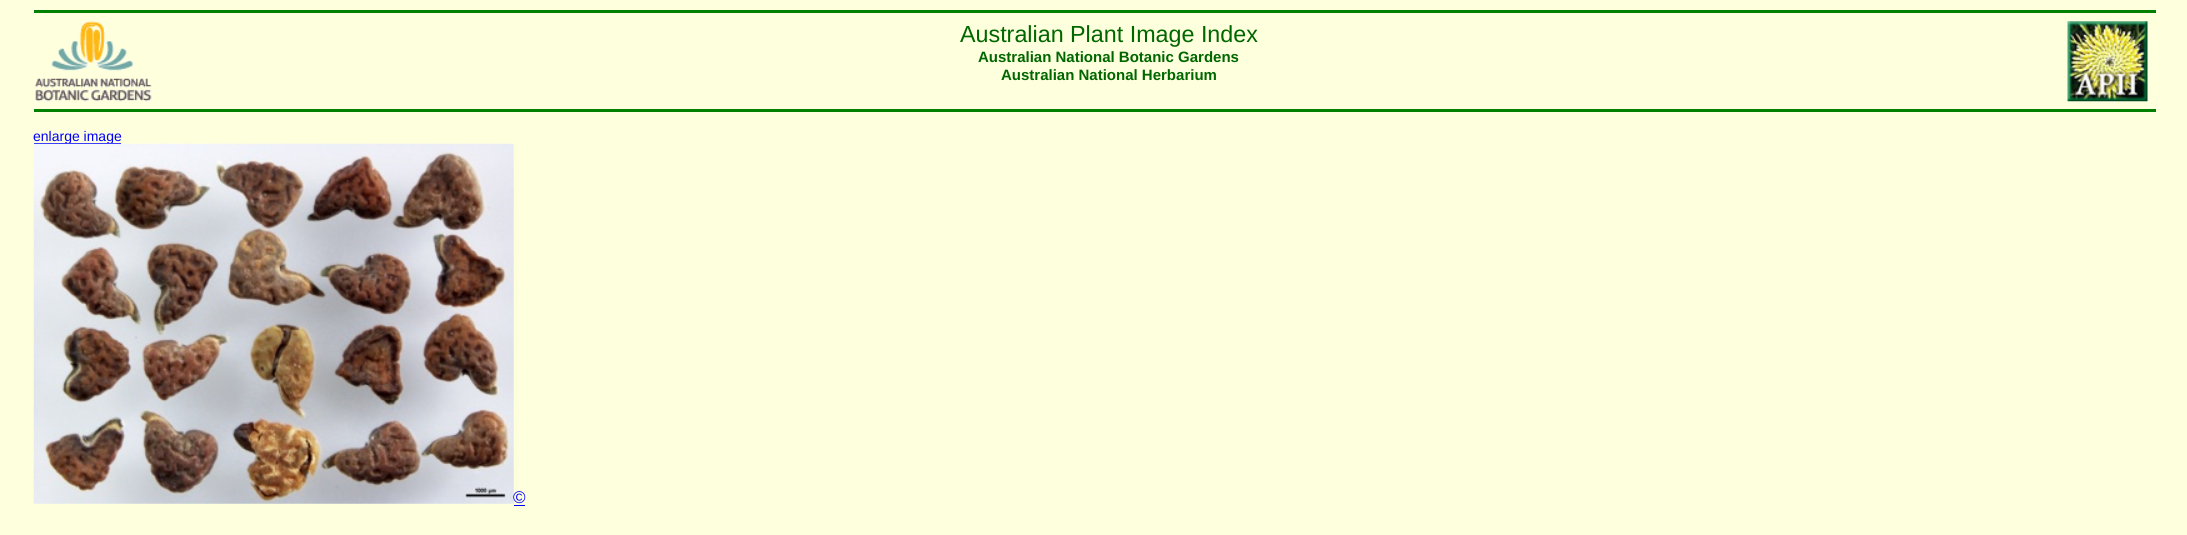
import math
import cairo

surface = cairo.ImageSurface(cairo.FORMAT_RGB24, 2187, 535)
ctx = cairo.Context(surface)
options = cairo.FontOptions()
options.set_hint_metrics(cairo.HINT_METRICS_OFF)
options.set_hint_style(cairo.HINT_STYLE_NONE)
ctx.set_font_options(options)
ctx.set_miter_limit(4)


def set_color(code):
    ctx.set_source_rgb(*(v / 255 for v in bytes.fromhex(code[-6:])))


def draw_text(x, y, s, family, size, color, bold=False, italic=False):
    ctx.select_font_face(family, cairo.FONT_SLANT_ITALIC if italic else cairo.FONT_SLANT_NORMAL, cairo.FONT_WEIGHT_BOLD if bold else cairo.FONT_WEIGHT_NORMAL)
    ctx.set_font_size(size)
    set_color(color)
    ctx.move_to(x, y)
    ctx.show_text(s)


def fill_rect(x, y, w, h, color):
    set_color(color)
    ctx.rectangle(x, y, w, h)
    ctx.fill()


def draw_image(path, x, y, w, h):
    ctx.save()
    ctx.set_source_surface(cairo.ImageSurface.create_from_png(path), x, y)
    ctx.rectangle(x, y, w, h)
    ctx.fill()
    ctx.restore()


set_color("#feffdd")
ctx.paint()
fill_rect(34, 10, 2122, 3, "#008000")
draw_image("assets/img1.png", 35, 21, 117, 81)
draw_text(960, 42, "Australian Plant Image Index", "Liberation Sans", 23.3, "#006600")
draw_image("assets/img2.png", 2067, 21, 81, 81)
draw_text(978, 62, "Australian National Botanic Gardens", "Liberation Sans", 15, "#006600", bold=True)
draw_text(1001, 80, "Australian National Herbarium", "Liberation Sans", 15, "#006600", bold=True)
fill_rect(34, 109, 2122, 3, "#008000")
fill_rect(34, 143, 87, 1, "#0000ff")
draw_text(33, 141, "enlarge image", "Liberation Sans", 14, "#0000ff")
draw_image("assets/img3.png", 33, 143, 481, 361)
draw_text(513, 503, "©", "Liberation Sans", 17, "#0000ff")
fill_rect(514, 505, 11, 1, "#0000ff")
surface.write_to_png("output.png")
